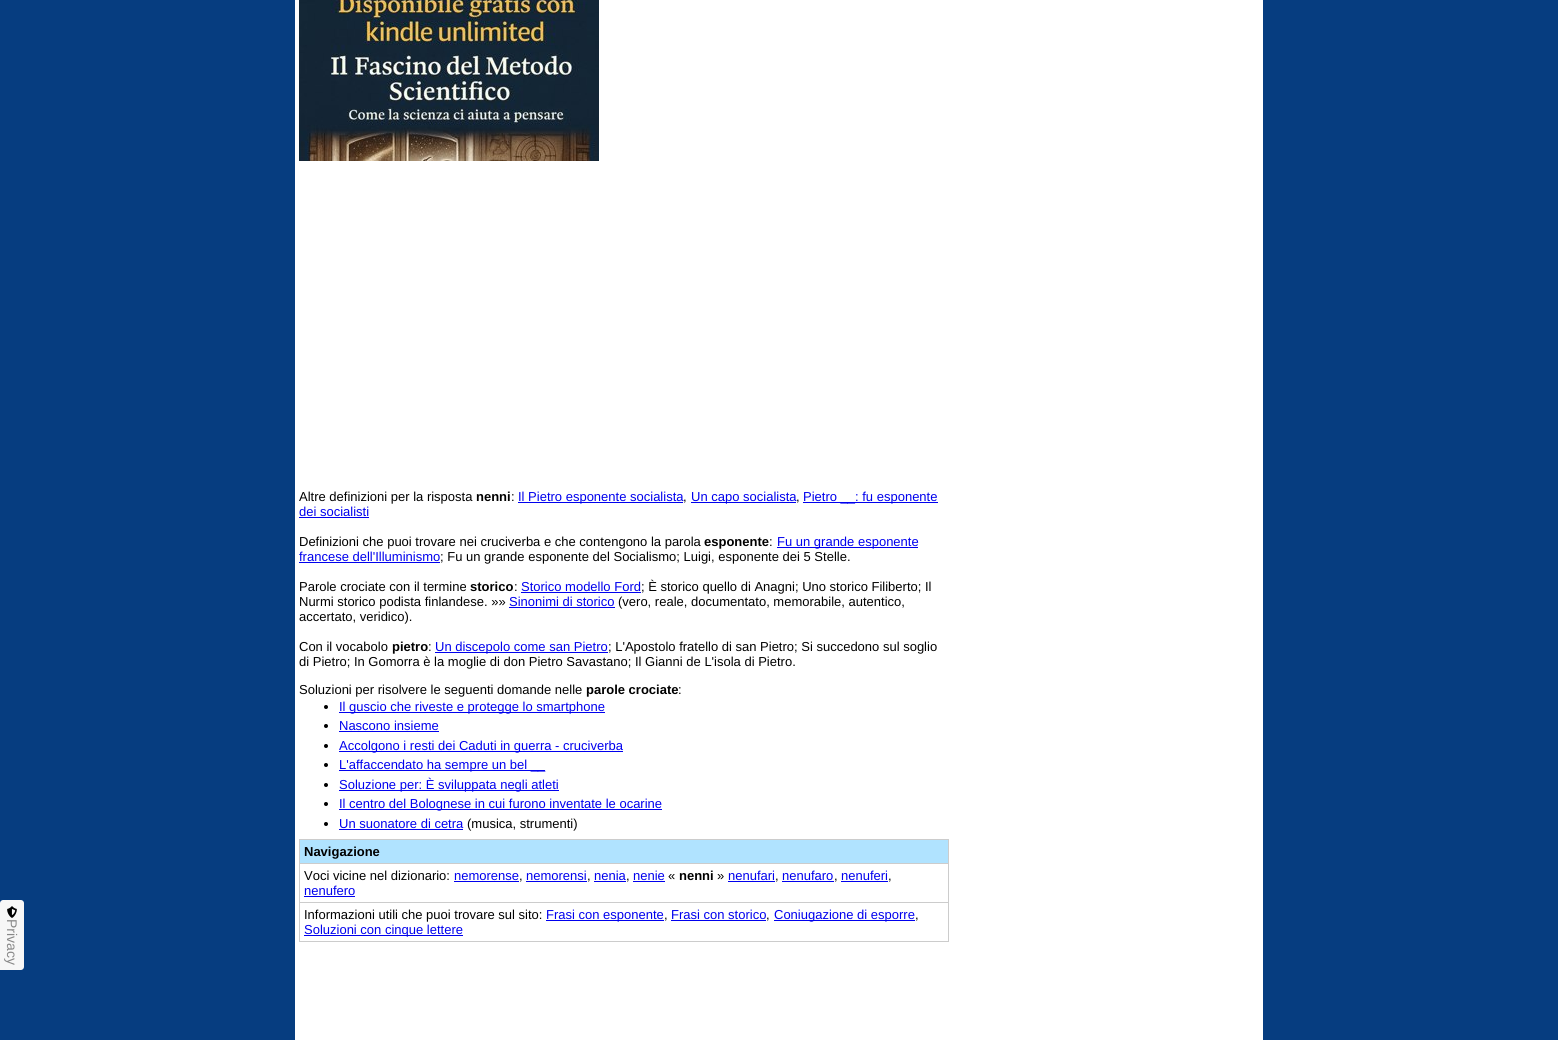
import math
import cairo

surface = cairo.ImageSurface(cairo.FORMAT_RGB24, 1558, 1040)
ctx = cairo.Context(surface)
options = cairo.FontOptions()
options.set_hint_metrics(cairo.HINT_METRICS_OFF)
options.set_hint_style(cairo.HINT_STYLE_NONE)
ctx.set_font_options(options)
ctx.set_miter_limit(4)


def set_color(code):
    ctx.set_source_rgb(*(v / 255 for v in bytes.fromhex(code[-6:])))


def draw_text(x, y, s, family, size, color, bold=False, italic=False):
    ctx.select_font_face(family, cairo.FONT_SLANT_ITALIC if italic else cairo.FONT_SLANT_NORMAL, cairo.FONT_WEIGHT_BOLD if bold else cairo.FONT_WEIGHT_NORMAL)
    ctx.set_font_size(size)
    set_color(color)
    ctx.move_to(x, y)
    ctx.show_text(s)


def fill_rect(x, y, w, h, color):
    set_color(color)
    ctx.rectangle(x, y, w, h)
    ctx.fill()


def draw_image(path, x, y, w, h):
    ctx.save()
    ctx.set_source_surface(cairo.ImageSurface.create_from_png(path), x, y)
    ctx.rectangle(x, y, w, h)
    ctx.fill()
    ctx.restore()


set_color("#063d80")
ctx.paint()
fill_rect(295, 0, 968, 1040, "#ffffff")
draw_image("assets/img1.png", 299, 0, 300, 161)
draw_text(299, 501, "Altre definizioni per la risposta", "Liberation Sans", 13, "#000000")
draw_text(476, 501, "nenni", "Liberation Sans", 13, "#000000", bold=True)
draw_text(511, 501, ":", "Liberation Sans", 13, "#000000")
fill_rect(518, 502, 165, 1, "#0000ee")
draw_text(518, 501, "Il Pietro esponente socialista", "Liberation Sans", 13, "#0000ee")
draw_text(683, 501, ",", "Liberation Sans", 13, "#000000")
fill_rect(691, 502, 105, 1, "#0000ee")
draw_text(691, 501, "Un capo socialista", "Liberation Sans", 13, "#0000ee")
draw_text(796, 501, ",", "Liberation Sans", 13, "#000000")
fill_rect(803, 502, 135, 1, "#0000ee")
draw_text(803, 501, "Pietro __: fu esponente", "Liberation Sans", 13, "#0000ee")
draw_text(299, 516, "dei socialisti", "Liberation Sans", 13, "#0000ee")
fill_rect(299, 517, 70, 1, "#0000ee")
draw_text(299, 546, "Definizioni che puoi trovare nei cruciverba e che contengono la parola", "Liberation Sans", 13, "#000000")
draw_text(704, 546, "esponente", "Liberation Sans", 13, "#000000", bold=True)
draw_text(769, 546, ":", "Liberation Sans", 13, "#000000")
fill_rect(777, 547, 141, 1, "#0000ee")
draw_text(777, 546, "Fu un grande esponente", "Liberation Sans", 13, "#0000ee")
draw_text(299, 561, "francese dell'Illuminismo", "Liberation Sans", 13, "#0000ee")
fill_rect(299, 562, 141, 1, "#0000ee")
draw_text(440, 561, "; Fu un grande esponente del Socialismo; Luigi, esponente dei 5 Stelle.", "Liberation Sans", 13, "#000000")
draw_text(299, 591, "Parole crociate con il termine", "Liberation Sans", 13, "#000000")
draw_text(470, 591, "storico", "Liberation Sans", 13, "#000000", bold=True)
draw_text(514, 591, ":", "Liberation Sans", 13, "#000000")
draw_text(521, 591, "Storico modello Ford", "Liberation Sans", 13, "#0000ee")
fill_rect(521, 592, 120, 1, "#0000ee")
draw_text(641, 591, "; È storico quello di Anagni; Uno storico Filiberto; Il", "Liberation Sans", 13, "#000000")
draw_text(299, 606, "Nurmi storico podista finlandese. »»", "Liberation Sans", 13, "#000000")
draw_text(509, 606, "Sinonimi di storico", "Liberation Sans", 13, "#0000ee")
fill_rect(509, 607, 106, 1, "#0000ee")
draw_text(618, 606, "(vero, reale, documentato, memorabile, autentico,", "Liberation Sans", 13, "#000000")
draw_text(299, 621, "accertato, veridico).", "Liberation Sans", 13, "#000000")
draw_text(299, 651, "Con il vocabolo", "Liberation Sans", 13, "#000000")
draw_text(392, 651, "pietro", "Liberation Sans", 13, "#000000", bold=True)
draw_text(428, 651, ":", "Liberation Sans", 13, "#000000")
fill_rect(435, 652, 173, 1, "#0000ee")
draw_text(435, 651, "Un discepolo come san Pietro", "Liberation Sans", 13, "#0000ee")
draw_text(608, 651, "; L'Apostolo fratello di san Pietro; Si succedono sul soglio", "Liberation Sans", 13, "#000000")
draw_text(299, 666, "di Pietro; In Gomorra è la moglie di don Pietro Savastano; Il Gianni de L'isola di Pietro.", "Liberation Sans", 13, "#000000")
draw_text(299, 694, "Soluzioni per risolvere le seguenti domande nelle", "Liberation Sans", 13, "#000000")
draw_text(586, 694, "parole crociate", "Liberation Sans", 13, "#000000", bold=True)
draw_text(678, 694, ":", "Liberation Sans", 13, "#000000")
ctx.new_path()
ctx.arc(326, 707, 2, 0, 2 * math.pi)
ctx.fill()
fill_rect(339, 712, 266, 1, "#0000ee")
draw_text(339, 711, "Il guscio che riveste e protegge lo smartphone", "Liberation Sans", 13, "#0000ee")
set_color("#000000")
ctx.new_path()
ctx.arc(326, 726, 2, 0, 2 * math.pi)
ctx.fill()
draw_text(339, 730, "Nascono insieme", "Liberation Sans", 13, "#0000ee")
fill_rect(339, 731, 100, 1, "#0000ee")
set_color("#000000")
ctx.new_path()
ctx.arc(326, 746, 2, 0, 2 * math.pi)
ctx.fill()
fill_rect(339, 751, 284, 1, "#0000ee")
draw_text(339, 750, "Accolgono i resti dei Caduti in guerra - cruciverba", "Liberation Sans", 13, "#0000ee")
set_color("#000000")
ctx.new_path()
ctx.arc(326, 765, 2, 0, 2 * math.pi)
ctx.fill()
fill_rect(339, 770, 206, 1, "#0000ee")
draw_text(339, 769, "L'affaccendato ha sempre un bel __", "Liberation Sans", 13, "#0000ee")
set_color("#000000")
ctx.new_path()
ctx.arc(326, 785, 2, 0, 2 * math.pi)
ctx.fill()
fill_rect(339, 790, 220, 1, "#0000ee")
draw_text(339, 789, "Soluzione per: È sviluppata negli atleti", "Liberation Sans", 13, "#0000ee")
set_color("#000000")
ctx.new_path()
ctx.arc(326, 804, 2, 0, 2 * math.pi)
ctx.fill()
fill_rect(339, 809, 323, 1, "#0000ee")
draw_text(339, 808, "Il centro del Bolognese in cui furono inventate le ocarine", "Liberation Sans", 13, "#0000ee")
set_color("#000000")
ctx.new_path()
ctx.arc(326, 824, 2, 0, 2 * math.pi)
ctx.fill()
draw_text(339, 828, "Un suonatore di cetra", "Liberation Sans", 13, "#0000ee")
fill_rect(339, 829, 124, 1, "#0000ee")
draw_text(467, 828, "(musica, strumenti)", "Liberation Sans", 13, "#000000")
fill_rect(299, 839, 650, 1, "#cccccc")
fill_rect(948, 839, 1, 103, "#cccccc")
fill_rect(299, 941, 650, 1, "#cccccc")
fill_rect(299, 839, 1, 103, "#cccccc")
fill_rect(300, 840, 648, 23, "#b0e3ff")
draw_text(304, 856, "Navigazione", "Liberation Sans", 13, "#000000", bold=True)
fill_rect(299, 863, 650, 1, "#cccccc")
draw_text(304, 880, "Voci vicine nel dizionario:", "Liberation Sans", 13, "#000000")
draw_text(454, 880, "nemorense", "Liberation Sans", 13, "#0000ee")
fill_rect(454, 881, 65, 1, "#0000ee")
draw_text(519, 880, ",", "Liberation Sans", 13, "#000000")
draw_text(526, 880, "nemorensi", "Liberation Sans", 13, "#0000ee")
fill_rect(526, 881, 61, 1, "#0000ee")
draw_text(587, 880, ",", "Liberation Sans", 13, "#000000")
draw_text(594, 880, "nenia", "Liberation Sans", 13, "#0000ee")
fill_rect(594, 881, 32, 1, "#0000ee")
draw_text(626, 880, ",", "Liberation Sans", 13, "#000000")
draw_text(633, 880, "nenie", "Liberation Sans", 13, "#0000ee")
fill_rect(633, 881, 32, 1, "#0000ee")
draw_text(668, 880, "«", "Liberation Sans", 13, "#000000")
draw_text(679, 880, "nenni", "Liberation Sans", 13, "#000000", bold=True)
draw_text(717, 880, "»", "Liberation Sans", 13, "#000000")
draw_text(728, 880, "nenufari", "Liberation Sans", 13, "#0000ee")
fill_rect(728, 881, 47, 1, "#0000ee")
draw_text(775, 880, ",", "Liberation Sans", 13, "#000000")
draw_text(782, 880, "nenufaro", "Liberation Sans", 13, "#0000ee")
fill_rect(782, 881, 52, 1, "#0000ee")
draw_text(834, 880, ",", "Liberation Sans", 13, "#000000")
draw_text(841, 880, "nenuferi", "Liberation Sans", 13, "#0000ee")
fill_rect(841, 881, 47, 1, "#0000ee")
draw_text(888, 880, ",", "Liberation Sans", 13, "#000000")
draw_text(304, 895, "nenufero", "Liberation Sans", 13, "#0000ee")
fill_rect(304, 896, 51, 1, "#0000ee")
fill_rect(299, 902, 650, 1, "#cccccc")
draw_text(304, 919, "Informazioni utili che puoi trovare sul sito:", "Liberation Sans", 13, "#000000")
fill_rect(546, 920, 118, 1, "#0000ee")
draw_text(546, 919, "Frasi con esponente", "Liberation Sans", 13, "#0000ee")
draw_text(664, 919, ",", "Liberation Sans", 13, "#000000")
draw_text(671, 919, "Frasi con storico", "Liberation Sans", 13, "#0000ee")
fill_rect(671, 920, 95, 1, "#0000ee")
draw_text(766, 919, ",", "Liberation Sans", 13, "#000000")
fill_rect(774, 920, 141, 1, "#0000ee")
draw_text(774, 919, "Coniugazione di esporre", "Liberation Sans", 13, "#0000ee")
draw_text(915, 919, ",", "Liberation Sans", 13, "#000000")
fill_rect(304, 935, 159, 1, "#0000ee")
draw_text(304, 934, "Soluzioni con cinque lettere", "Liberation Sans", 13, "#0000ee")
set_color("#f7f7f7")
ctx.new_path()
ctx.move_to(3, 900)
ctx.line_to(21, 900)
ctx.curve_to(22.5, 900, 24, 901.5, 24, 903)
ctx.line_to(24, 967)
ctx.curve_to(24, 968.5, 22.5, 970, 21, 970)
ctx.line_to(0, 970)
ctx.line_to(0, 903)
ctx.curve_to(0, 901.5, 1.5, 900, 3, 900)
ctx.close_path()
ctx.fill()
draw_image("assets/img2.png", 7, 906, 10, 12)
ctx.save()
ctx.translate(7, 919)
ctx.rotate(90 * math.pi / 180)
draw_text(0, 0, "Privacy", "Liberation Sans", 14, "#888888")
ctx.restore()
surface.write_to_png("output.png")
